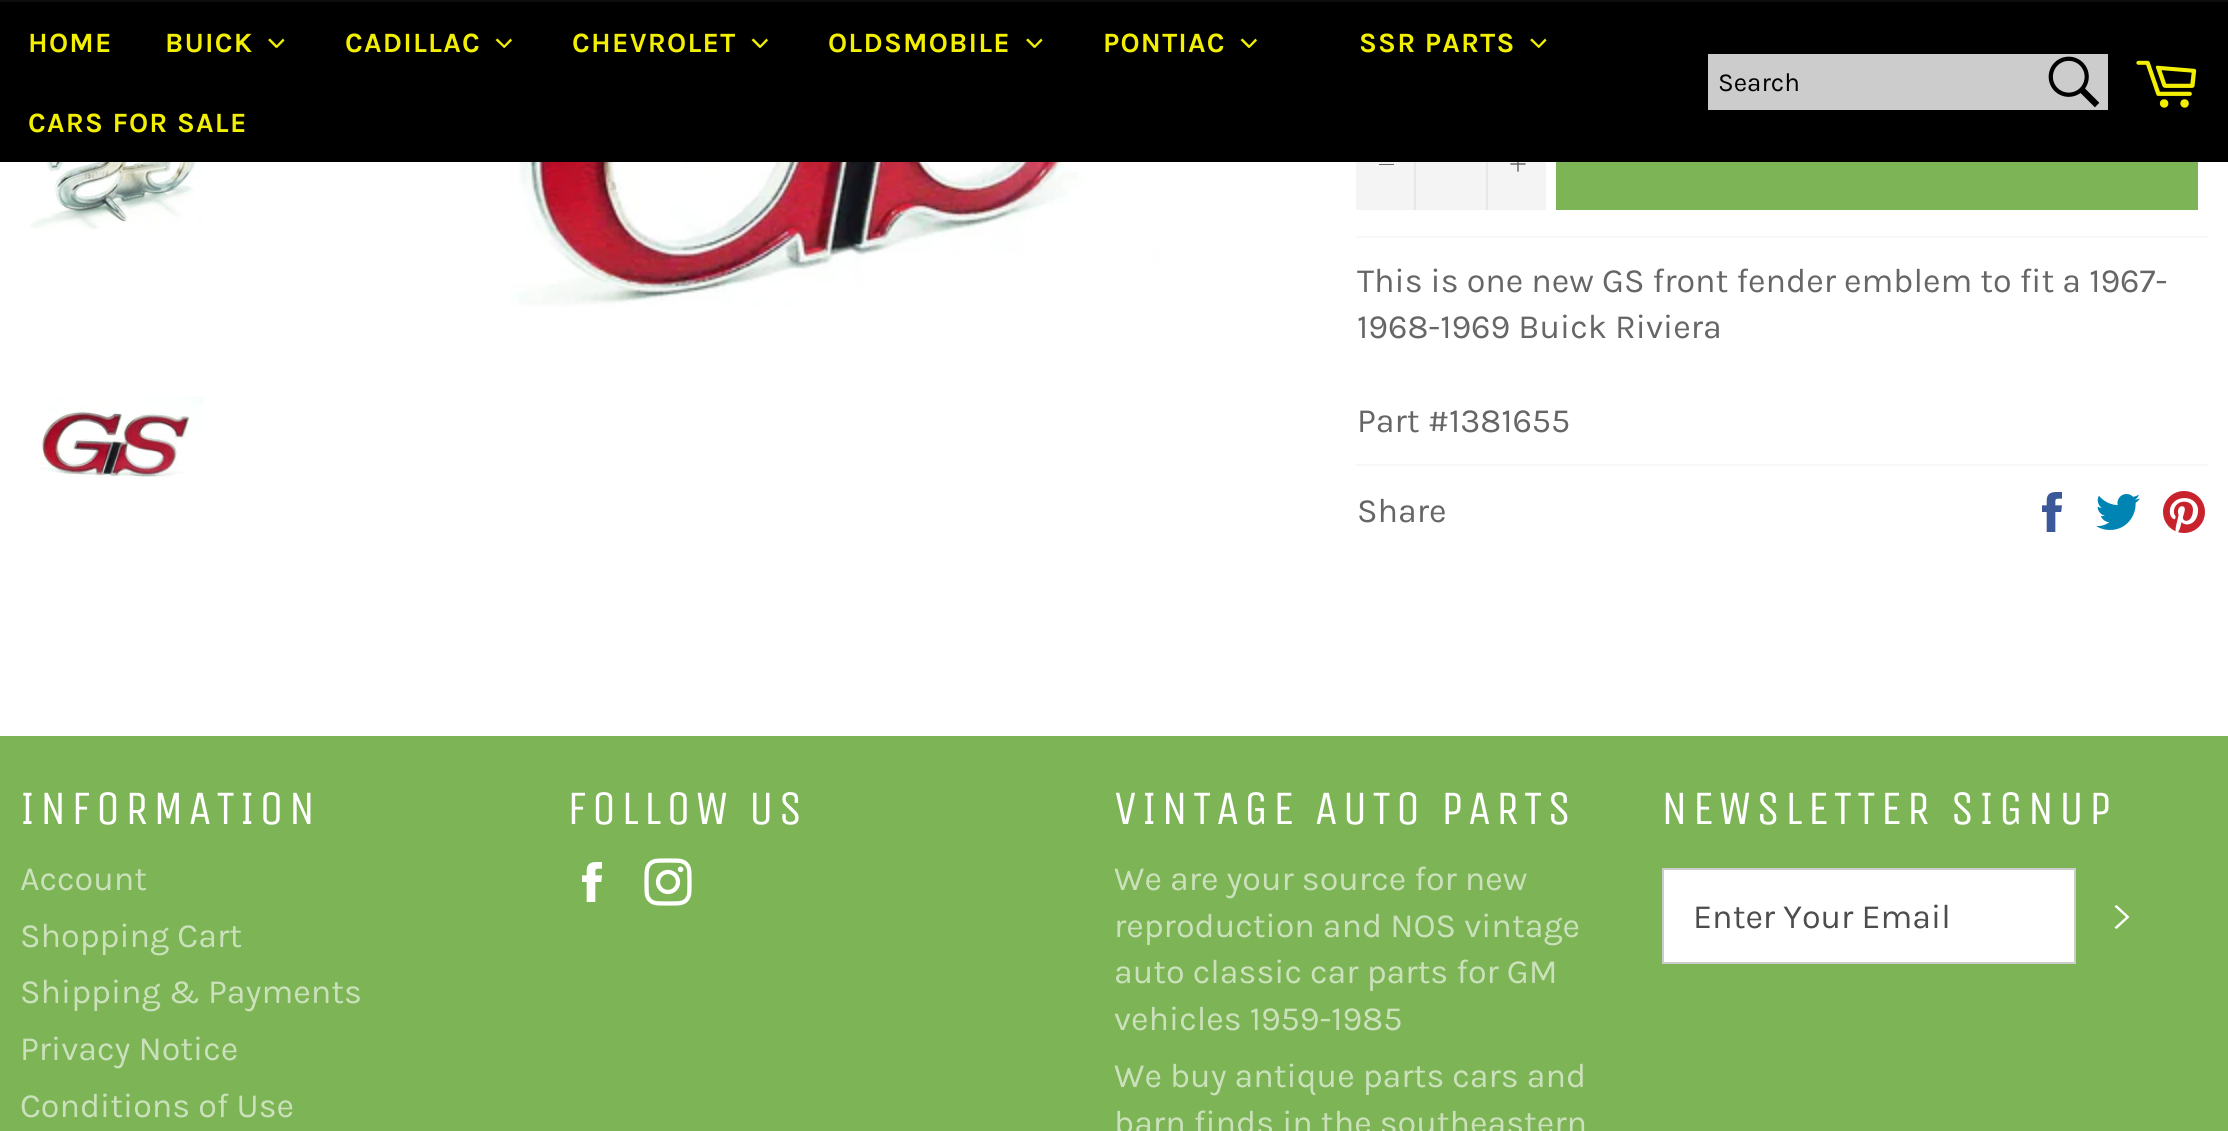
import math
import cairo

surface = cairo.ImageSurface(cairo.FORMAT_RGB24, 2228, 1131)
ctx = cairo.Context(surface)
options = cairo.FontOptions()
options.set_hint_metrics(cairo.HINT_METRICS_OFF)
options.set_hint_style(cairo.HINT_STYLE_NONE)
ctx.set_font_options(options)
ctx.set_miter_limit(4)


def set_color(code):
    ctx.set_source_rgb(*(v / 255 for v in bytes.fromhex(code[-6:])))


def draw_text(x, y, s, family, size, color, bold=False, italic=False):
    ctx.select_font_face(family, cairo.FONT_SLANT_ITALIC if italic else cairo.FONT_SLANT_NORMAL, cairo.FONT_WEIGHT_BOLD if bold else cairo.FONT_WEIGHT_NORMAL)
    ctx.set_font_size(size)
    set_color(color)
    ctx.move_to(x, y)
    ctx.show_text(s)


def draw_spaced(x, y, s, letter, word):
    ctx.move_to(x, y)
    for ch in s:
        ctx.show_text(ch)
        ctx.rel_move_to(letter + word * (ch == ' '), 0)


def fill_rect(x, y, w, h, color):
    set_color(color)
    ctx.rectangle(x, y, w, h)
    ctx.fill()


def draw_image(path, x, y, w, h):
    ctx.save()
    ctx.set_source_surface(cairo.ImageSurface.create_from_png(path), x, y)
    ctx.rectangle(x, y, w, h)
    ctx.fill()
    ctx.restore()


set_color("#ffffff")
ctx.paint()
fill_rect(0, 2, 2228, 160, "#000000")
fill_rect(0, 0, 2228, 2, "#0d0d0d")
ctx.select_font_face("Karla", cairo.FONT_SLANT_NORMAL, cairo.FONT_WEIGHT_BOLD)
ctx.set_font_size(28)
set_color("#f2ef03")
draw_spaced(28, 52, "HOME", 1.25, 0)
draw_spaced(165, 52, "BUICK", 1.25, 0)
ctx.new_path()
ctx.move_to(283, 38.5)
ctx.line_to(284.5, 40.5)
ctx.line_to(277, 48)
ctx.line_to(275.5, 46.5)
ctx.close_path()
ctx.fill()
ctx.new_path()
ctx.move_to(270, 38.5)
ctx.line_to(278, 46.5)
ctx.line_to(276, 48)
ctx.line_to(268, 40)
ctx.close_path()
ctx.fill()
draw_spaced(345, 52, "CADILLAC", 1.25, 0)
ctx.new_path()
ctx.move_to(510.5, 38.5)
ctx.line_to(512, 40.5)
ctx.line_to(504.5, 48)
ctx.line_to(503, 46.5)
ctx.close_path()
ctx.fill()
ctx.new_path()
ctx.move_to(497.5, 38.5)
ctx.line_to(505.5, 46.5)
ctx.line_to(504, 48)
ctx.line_to(495.5, 40)
ctx.close_path()
ctx.fill()
draw_spaced(572, 52, "CHEVROLET", 1.25, 0)
ctx.new_path()
ctx.move_to(766.5, 38.5)
ctx.line_to(768, 40.5)
ctx.line_to(760.5, 48)
ctx.line_to(759, 46.5)
ctx.close_path()
ctx.fill()
ctx.new_path()
ctx.move_to(753.5, 38.5)
ctx.line_to(761.5, 46.5)
ctx.line_to(759.5, 48)
ctx.line_to(751.5, 40)
ctx.close_path()
ctx.fill()
draw_spaced(828, 52, "OLDSMOBILE", 1.25, 0)
ctx.new_path()
ctx.move_to(1041, 38.5)
ctx.line_to(1042.5, 40.5)
ctx.line_to(1035, 48)
ctx.line_to(1033.5, 46.5)
ctx.close_path()
ctx.fill()
ctx.new_path()
ctx.move_to(1028, 38.5)
ctx.line_to(1036, 46.5)
ctx.line_to(1034, 48)
ctx.line_to(1026, 40)
ctx.close_path()
ctx.fill()
draw_spaced(1103, 52, "PONTIAC", 1.25, 0)
ctx.new_path()
ctx.move_to(1255.5, 38.5)
ctx.line_to(1257, 40.5)
ctx.line_to(1249.5, 48)
ctx.line_to(1248, 46.5)
ctx.close_path()
ctx.fill()
ctx.new_path()
ctx.move_to(1242.5, 38.5)
ctx.line_to(1250.5, 46.5)
ctx.line_to(1248.5, 48)
ctx.line_to(1240.5, 40)
ctx.close_path()
ctx.fill()
draw_spaced(1359, 52, "SSR PARTS", 1.25, 0)
ctx.new_path()
ctx.move_to(1545, 38.5)
ctx.line_to(1546.5, 40.5)
ctx.line_to(1539, 48)
ctx.line_to(1537.5, 46.5)
ctx.close_path()
ctx.fill()
ctx.new_path()
ctx.move_to(1532, 38.5)
ctx.line_to(1540, 46.5)
ctx.line_to(1538.5, 48)
ctx.line_to(1530, 40)
ctx.close_path()
ctx.fill()
draw_spaced(28, 132, "CARS FOR SALE", 1.25, 0)
fill_rect(1708, 54, 400, 56, "#cccccc")
draw_text(1718, 91, "Search", "Karla", 26, "#000000")
draw_image("assets/img1.png", 2048, 56, 52, 52)
draw_image("assets/img2.png", 2136, 60, 61, 48)
draw_image("assets/img3.png", 30, 162, 174, 67)
draw_image("assets/img4.png", 39, 396, 165, 82)
draw_image("assets/img5.png", 474, 162, 725, 145)
fill_rect(1356, 162, 190, 48, "#f4f4f4")
fill_rect(1414, 162, 2, 48, "#e7e7e7")
fill_rect(1379, 164, 15, 1, "#666666")
fill_rect(1486, 162, 2, 48, "#e7e7e7")
draw_image("assets/img6.png", 1510, 162, 16, 10)
fill_rect(1556, 162, 642, 48, "#7db455")
fill_rect(1356, 236, 852, 2, "#f7f7f7")
draw_text(1357, 292, "This is one new GS front fender emblem to fit a 1967-", "Karla", 34, "#666666")
draw_text(1357, 338, "1968-1969 Buick Riviera", "Karla", 34, "#666666")
draw_text(1357, 432, "Part #1381655", "Karla", 34, "#666666")
fill_rect(1356, 464, 852, 2, "#f7f7f7")
draw_text(1357, 522, "Share", "Karla", 34, "#666666")
draw_image("assets/img7.png", 2042, 492, 20, 40)
draw_image("assets/img8.png", 2096, 494, 44, 36)
draw_image("assets/img9.png", 2163, 491, 42, 42)
fill_rect(0, 736, 2228, 395, "#7db455")
ctx.select_font_face("Unica One")
ctx.set_font_size(48)
set_color("#ffffff")
draw_spaced(20, 824, "INFORMATION", 4.75, 0)
draw_text(20, 890, "Account", "Karla", 34, "#cbe1bb")
draw_text(20, 947, "Shopping Cart", "Karla", 34, "#cbe1bb")
draw_text(20, 1003, "Shipping & Payments", "Karla", 34, "#cbe1bb")
draw_text(20, 1060, "Privacy Notice", "Karla", 34, "#cbe1bb")
draw_text(20, 1117, "Conditions of Use", "Karla", 34, "#cbe1bb")
ctx.select_font_face("Unica One")
ctx.set_font_size(48)
set_color("#ffffff")
draw_spaced(567, 824, "FOLLOW US", 4.75, 0)
draw_image("assets/img10.png", 582, 862, 20, 40)
draw_image("assets/img11.png", 644, 858, 48, 48)
draw_spaced(1114, 824, "VINTAGE AUTO PARTS", 4.75, 0)
draw_text(1114, 890, "We are your source for new", "Karla", 34, "#cbe1bb")
draw_text(1114, 937, "reproduction and NOS vintage", "Karla", 34, "#cbe1bb")
draw_text(1114, 983, "auto classic car parts for GM", "Karla", 34, "#cbe1bb")
draw_text(1114, 1030, "vehicles 1959-1985", "Karla", 34, "#cbe1bb")
draw_text(1114, 1087, "We buy antique parts cars and", "Karla", 34, "#cbe1bb")
draw_text(1114, 1134, "barn finds in the southeastern", "Karla", 34, "#cbe1bb")
ctx.select_font_face("Unica One")
ctx.set_font_size(48)
set_color("#ffffff")
draw_spaced(1661, 824, "NEWSLETTER SIGNUP", 4.75, 0)
ctx.rectangle(1663, 869, 412, 94)
ctx.fill_preserve()
set_color("#cccccc")
ctx.stroke()
draw_text(1693, 928, "Enter Your Email", "Karla", 34, "#4d4d4d")
set_color("#ffffff")
ctx.new_path()
ctx.move_to(2114.5, 906.5)
ctx.line_to(2116.5, 905)
ctx.line_to(2129.5, 917)
ctx.line_to(2116.5, 929)
ctx.line_to(2114.5, 927.5)
ctx.line_to(2126, 917)
ctx.close_path()
ctx.fill()
surface.write_to_png("output.png")
